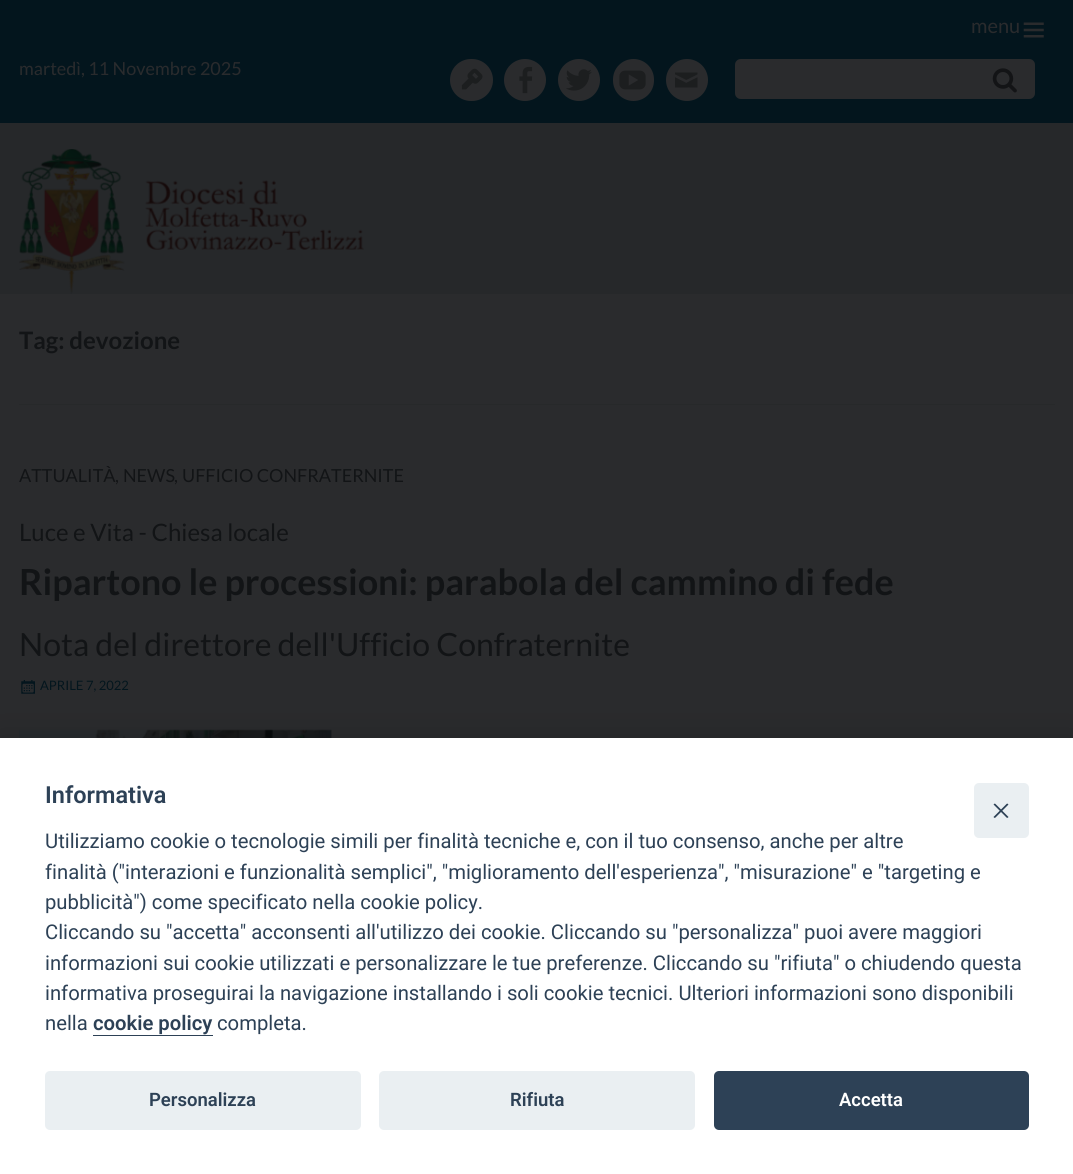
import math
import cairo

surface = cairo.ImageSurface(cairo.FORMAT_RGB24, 1073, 1174)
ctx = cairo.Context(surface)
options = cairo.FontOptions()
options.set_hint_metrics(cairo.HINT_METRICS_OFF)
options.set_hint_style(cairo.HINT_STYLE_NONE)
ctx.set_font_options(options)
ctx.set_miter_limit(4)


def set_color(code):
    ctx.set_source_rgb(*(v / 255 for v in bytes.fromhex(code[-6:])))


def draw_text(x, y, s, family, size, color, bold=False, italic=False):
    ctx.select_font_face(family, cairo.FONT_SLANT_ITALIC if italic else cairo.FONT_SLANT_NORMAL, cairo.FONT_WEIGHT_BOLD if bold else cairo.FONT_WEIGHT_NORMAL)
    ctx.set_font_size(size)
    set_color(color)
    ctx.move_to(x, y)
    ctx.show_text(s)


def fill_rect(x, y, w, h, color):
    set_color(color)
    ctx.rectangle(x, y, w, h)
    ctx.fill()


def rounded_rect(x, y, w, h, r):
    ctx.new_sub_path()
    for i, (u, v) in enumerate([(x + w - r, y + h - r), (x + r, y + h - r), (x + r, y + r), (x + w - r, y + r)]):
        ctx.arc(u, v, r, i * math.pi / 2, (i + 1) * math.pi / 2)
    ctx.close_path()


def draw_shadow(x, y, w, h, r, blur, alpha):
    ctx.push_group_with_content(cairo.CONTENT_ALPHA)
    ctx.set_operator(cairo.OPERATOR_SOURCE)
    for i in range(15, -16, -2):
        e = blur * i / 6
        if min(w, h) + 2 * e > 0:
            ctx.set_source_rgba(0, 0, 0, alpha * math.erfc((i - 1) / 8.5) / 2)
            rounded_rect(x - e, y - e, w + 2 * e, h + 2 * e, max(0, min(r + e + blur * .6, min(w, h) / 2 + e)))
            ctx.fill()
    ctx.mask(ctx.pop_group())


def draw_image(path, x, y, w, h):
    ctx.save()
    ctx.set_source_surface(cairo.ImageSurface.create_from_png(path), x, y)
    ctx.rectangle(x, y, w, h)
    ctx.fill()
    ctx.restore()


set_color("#26282a")
ctx.paint()
fill_rect(0, 0, 1073, 123, "#03151d")
draw_text(971, 33, "menu", "Lato", 20, "#2a2b2d")
draw_image("assets/img1.png", 1023, 22, 21, 16)
draw_text(19, 75, "martedì, 11 Novembre 2025", "Lato", 18, "#2a2b2d")
rounded_rect(450, 59, 43, 42, 21)
ctx.fill()
draw_image("assets/img2.png", 461, 68, 22, 22)
ctx.arc(525, 80, 21, 0, 2 * math.pi)
ctx.fill()
draw_image("assets/img3.png", 519, 66, 14, 28)
ctx.arc(579, 80, 21, 0, 2 * math.pi)
ctx.fill()
draw_image("assets/img4.png", 566, 69, 26, 22)
rounded_rect(613, 59, 41, 42, 20.5)
ctx.fill()
draw_image("assets/img5.png", 619, 70, 27, 20)
ctx.arc(687, 80, 21, 0, 2 * math.pi)
ctx.fill()
draw_image("assets/img6.png", 675, 72, 23, 16)
ctx.new_path()
ctx.move_to(741, 59)
ctx.line_to(975, 59)
ctx.line_to(975, 99)
ctx.line_to(741, 99)
ctx.curve_to(737.5, 99, 735, 96.5, 735, 93)
ctx.line_to(735, 65)
ctx.curve_to(735, 61.5, 737.5, 59, 741, 59)
ctx.close_path()
ctx.fill()
ctx.new_path()
ctx.move_to(975, 59)
ctx.line_to(1029, 59)
ctx.curve_to(1032.5, 59, 1035, 61.5, 1035, 65)
ctx.line_to(1035, 93)
ctx.curve_to(1035, 96.5, 1032.5, 99, 1029, 99)
ctx.line_to(975, 99)
ctx.close_path()
ctx.fill()
draw_image("assets/img7.png", 992, 68, 25, 25)
draw_image("assets/img8.png", 19, 149, 345, 145)
fill_rect(0, 294, 1073, 444, "#2a2b2d")
fill_rect(19, 404, 1036, 1, "#27292a")
draw_text(19, 349, "Tag: devozione", "Lato", 24, "#121416", bold=True)
draw_text(19, 482, "ATTUALITÀ", "Lato", 18, "#121416")
draw_text(115, 482, ",", "Lato", 18, "#121416")
draw_text(123, 482, "NEWS", "Lato", 18, "#121416")
draw_text(174, 482, ",", "Lato", 18, "#121416")
draw_text(182, 482, "UFFICIO CONFRATERNITE", "Lato", 18, "#121416")
draw_text(19, 541, "Luce e Vita - Chiesa locale", "Lato", 24, "#121416")
draw_text(19, 595, "Ripartono le processioni: parabola del cammino di fede", "Lato", 36, "#121416", bold=True)
draw_text(19, 656, "Nota del direttore dell'Ufficio Confraternite", "Lato", 32, "#121416")
draw_image("assets/img9.png", 21, 680, 14, 14)
draw_text(40, 690, "APRILE 7, 2022", "Lato", 13, "#03151d")
draw_image("assets/img10.png", 19, 729, 313, 9)
set_color("#020203")
draw_shadow(0, 751, 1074, 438, 0, 21, 0.28)
fill_rect(0, 738, 1073, 436, "#ffffff")
set_color("#eaeff2")
rounded_rect(974, 783, 55, 55, 5)
ctx.fill()
set_color("#2d4156")
ctx.new_path()
ctx.move_to(1008, 804)
ctx.curve_to(1008.5, 804, 1008.5, 804.5, 1008, 805)
ctx.line_to(995.5, 817.5)
ctx.curve_to(995, 818, 994.5, 818, 994, 817.5)
ctx.curve_to(993.5, 817.5, 993.5, 816.5, 994, 816.5)
ctx.line_to(1006.5, 804)
ctx.curve_to(1007, 803.5, 1007.5, 803.5, 1008, 804)
ctx.close_path()
ctx.fill()
ctx.new_path()
ctx.move_to(994, 804)
ctx.curve_to(994.5, 803.5, 995, 803.5, 995.5, 804)
ctx.line_to(1008, 816.5)
ctx.curve_to(1008.5, 816.5, 1008.5, 817.5, 1008, 817.5)
ctx.curve_to(1007.5, 818, 1007, 818, 1006.5, 817.5)
ctx.line_to(994, 805)
ctx.curve_to(993.5, 804.5, 993.5, 804, 994, 804)
ctx.close_path()
ctx.fill()
draw_text(45, 803, "Informativa", "Roboto SemiBold", 23.5, "#2d4156")
draw_text(45, 848, "Utilizziamo cookie o tecnologie simili per finalità tecniche e, con il tuo consenso, anche per altre", "Roboto", 20.25, "#2d4156")
draw_text(45, 879, "finalità (\"interazioni e funzionalità semplici\", \"miglioramento dell'esperienza\", \"misurazione\" e \"targeting e", "Roboto", 20.25, "#2d4156")
draw_text(45, 909, "pubblicità\") come specificato nella cookie policy.", "Roboto", 20.25, "#2d4156")
draw_text(45, 939, "Cliccando su \"accetta\" acconsenti all'utilizzo dei cookie. Cliccando su \"personalizza\" puoi avere maggiori", "Roboto", 20.25, "#2d4156")
draw_text(45, 970, "informazioni sui cookie utilizzati e personalizzare le tue preferenze. Cliccando su \"rifiuta\" o chiudendo questa", "Roboto", 20.25, "#2d4156")
draw_text(45, 1000, "informativa proseguirai la navigazione installando i soli cookie tecnici. Ulteriori informazioni sono disponibili", "Roboto", 20.25, "#2d4156")
draw_text(45, 1030, "nella", "Roboto", 20.25, "#2d4156")
draw_text(93, 1030, "cookie policy", "Roboto SemiBold", 20.25, "#2d4156")
fill_rect(93, 1035, 120, 1, "#2d4156")
draw_text(217, 1030, "completa.", "Roboto", 20.25, "#2d4156")
set_color("#eaeff2")
rounded_rect(45, 1071, 316, 59, 5)
ctx.fill()
draw_text(149, 1106, "Personalizza", "Roboto SemiBold", 18.5, "#2d4156")
set_color("#eaeff2")
rounded_rect(379, 1071, 316, 59, 5)
ctx.fill()
draw_text(510, 1106, "Rifiuta", "Roboto SemiBold", 18.5, "#2d4156")
rounded_rect(714, 1071, 315, 59, 5)
ctx.fill()
draw_text(839, 1106, "Accetta", "Roboto SemiBold", 18.5, "#ffffff")
surface.write_to_png("output.png")
